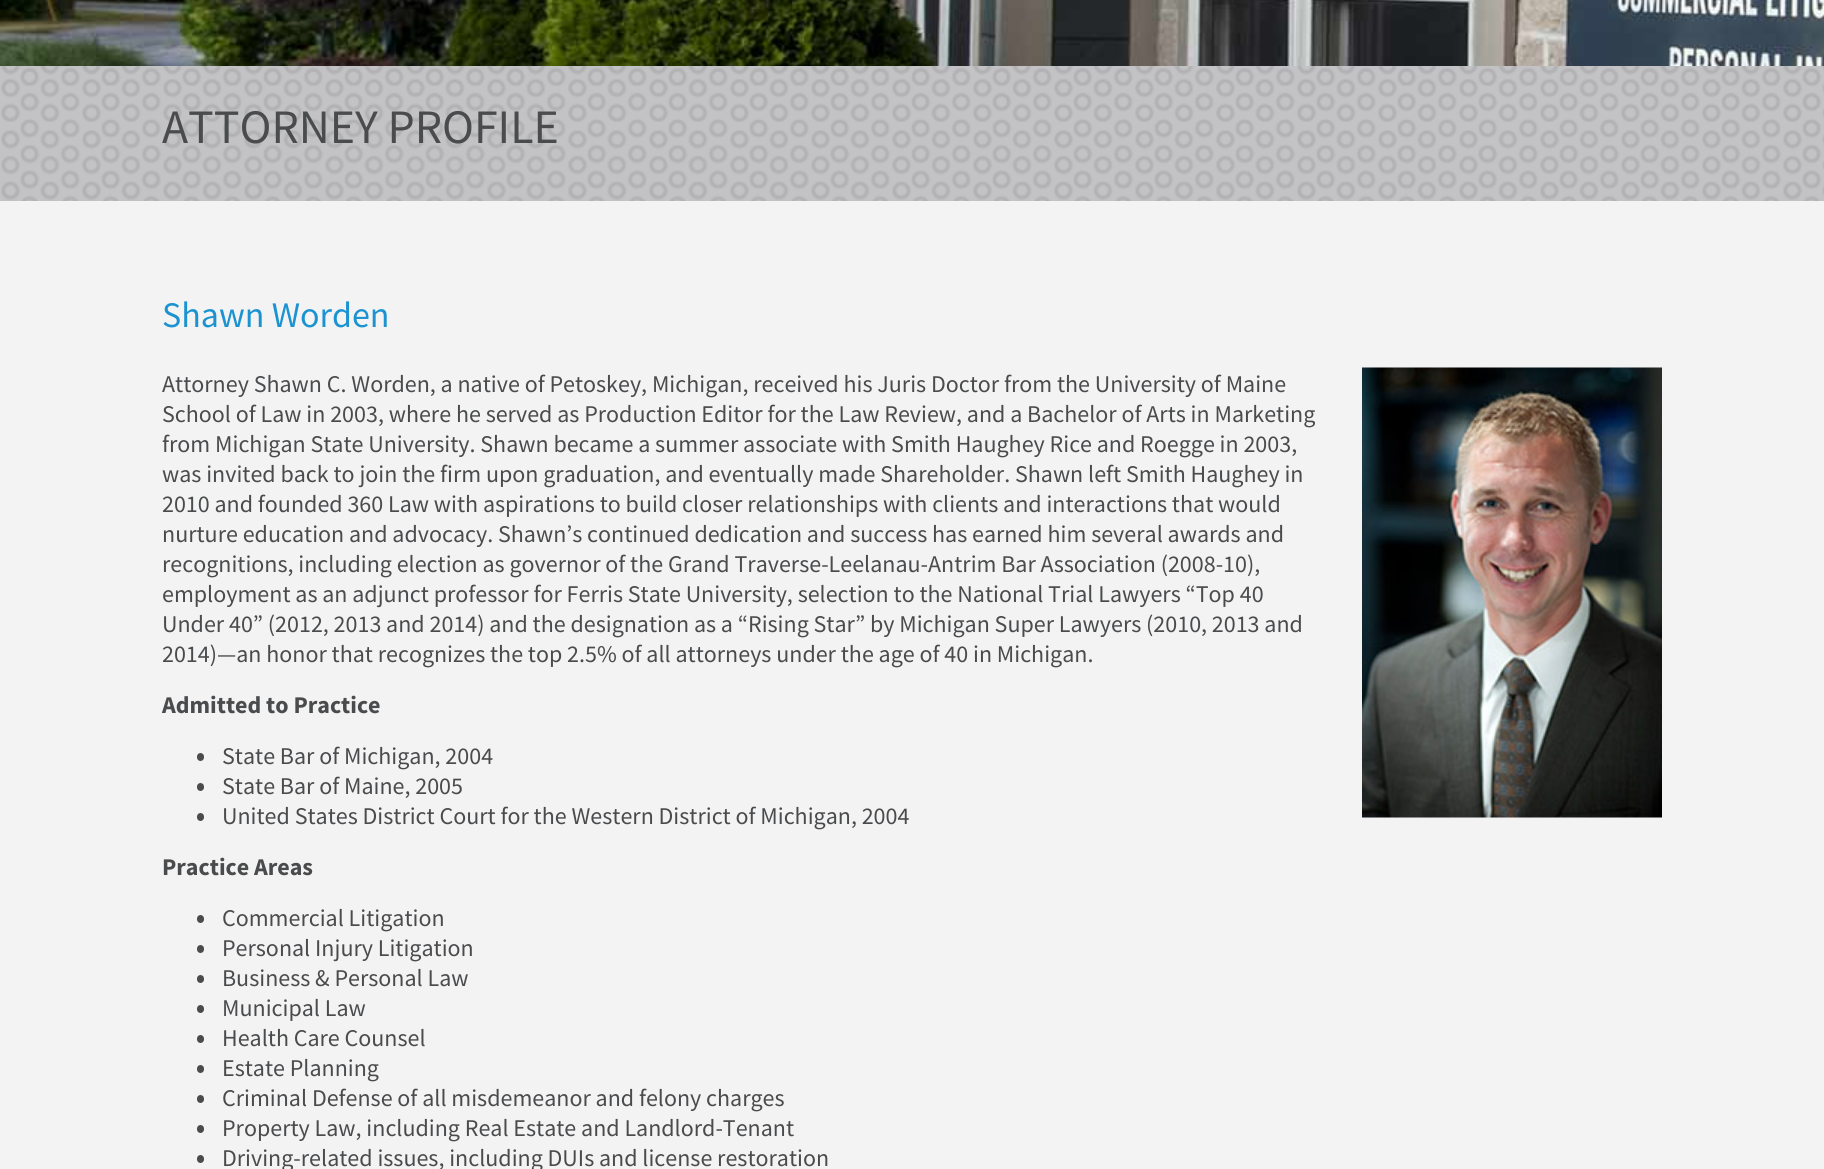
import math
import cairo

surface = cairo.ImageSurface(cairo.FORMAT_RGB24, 1824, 1169)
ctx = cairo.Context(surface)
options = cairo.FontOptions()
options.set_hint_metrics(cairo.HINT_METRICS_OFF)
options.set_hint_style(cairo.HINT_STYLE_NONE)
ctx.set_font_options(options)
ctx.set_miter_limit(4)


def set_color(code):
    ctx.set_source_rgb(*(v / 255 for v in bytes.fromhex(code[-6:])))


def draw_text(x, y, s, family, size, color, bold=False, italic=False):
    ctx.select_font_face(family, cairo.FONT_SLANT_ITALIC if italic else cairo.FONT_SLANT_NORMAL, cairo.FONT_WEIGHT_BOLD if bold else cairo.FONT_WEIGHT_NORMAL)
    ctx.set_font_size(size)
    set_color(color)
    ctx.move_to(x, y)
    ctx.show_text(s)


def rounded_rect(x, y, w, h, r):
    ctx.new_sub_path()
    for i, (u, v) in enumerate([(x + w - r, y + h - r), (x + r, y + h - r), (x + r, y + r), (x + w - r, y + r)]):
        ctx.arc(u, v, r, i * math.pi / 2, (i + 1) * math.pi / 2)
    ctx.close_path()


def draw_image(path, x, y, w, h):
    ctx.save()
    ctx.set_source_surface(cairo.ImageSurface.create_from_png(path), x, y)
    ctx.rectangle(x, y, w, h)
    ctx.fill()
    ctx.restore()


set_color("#f3f3f3")
ctx.paint()
draw_image("assets/img1.png", 0, 0, 1824, 66)
draw_image("assets/img2.png", 0, 66, 1824, 135)
draw_text(162, 143, "ATTORNEY PROFILE", "Source Sans Pro", 48, "#4a4b4d")
draw_text(162, 327, "Shawn Worden", "Source Sans Pro", 36, "#1c93d1")
draw_text(162, 392, "Attorney Shawn C. Worden, a native of Petoskey, Michigan, received his Juris Doctor from the University of Maine", "Source Sans Pro", 24, "#4a4b4d")
draw_text(162, 422, "School of Law in 2003, where he served as Production Editor for the Law Review, and a Bachelor of Arts in Marketing", "Source Sans Pro", 24, "#4a4b4d")
draw_text(162, 452, "from Michigan State University. Shawn became a summer associate with Smith Haughey Rice and Roegge in 2003,", "Source Sans Pro", 24, "#4a4b4d")
draw_text(162, 482, "was invited back to join the firm upon graduation, and eventually made Shareholder. Shawn left Smith Haughey in", "Source Sans Pro", 24, "#4a4b4d")
draw_text(162, 512, "2010 and founded 360 Law with aspirations to build closer relationships with clients and interactions that would", "Source Sans Pro", 24, "#4a4b4d")
draw_text(162, 542, "nurture education and advocacy. Shawn’s continued dedication and success has earned him several awards and", "Source Sans Pro", 24, "#4a4b4d")
draw_text(162, 572, "recognitions, including election as governor of the Grand Traverse-Leelanau-Antrim Bar Association (2008-10),", "Source Sans Pro", 24, "#4a4b4d")
draw_text(162, 602, "employment as an adjunct professor for Ferris State University, selection to the National Trial Lawyers “Top 40", "Source Sans Pro", 24, "#4a4b4d")
draw_text(162, 632, "Under 40” (2012, 2013 and 2014) and the designation as a “Rising Star” by Michigan Super Lawyers (2010, 2013 and", "Source Sans Pro", 24, "#4a4b4d")
draw_text(162, 662, "2014)—an honor that recognizes the top 2.5% of all attorneys under the age of 40 in Michigan.", "Source Sans Pro", 24, "#4a4b4d")
draw_image("assets/img3.png", 1362, 367, 300, 451)
draw_text(162, 713, "Admitted to Practice", "Source Sans Pro", 24, "#4a4b4d", bold=True)
rounded_rect(197, 753, 7, 8, 3.5)
ctx.fill()
draw_text(222, 764, "State Bar of Michigan, 2004", "Source Sans Pro", 24, "#4a4b4d")
rounded_rect(197, 783, 7, 8, 3.5)
ctx.fill()
draw_text(222, 794, "State Bar of Maine, 2005", "Source Sans Pro", 24, "#4a4b4d")
rounded_rect(197, 813, 7, 8, 3.5)
ctx.fill()
draw_text(222, 824, "United States District Court for the Western District of Michigan, 2004", "Source Sans Pro", 24, "#4a4b4d")
draw_text(162, 875, "Practice Areas", "Source Sans Pro", 24, "#4a4b4d", bold=True)
rounded_rect(197, 915, 7, 8, 3.5)
ctx.fill()
draw_text(222, 926, "Commercial Litigation", "Source Sans Pro", 24, "#4a4b4d")
rounded_rect(197, 945, 7, 8, 3.5)
ctx.fill()
draw_text(222, 956, "Personal Injury Litigation", "Source Sans Pro", 24, "#4a4b4d")
rounded_rect(197, 975, 7, 8, 3.5)
ctx.fill()
draw_text(222, 986, "Business & Personal Law", "Source Sans Pro", 24, "#4a4b4d")
rounded_rect(197, 1005, 7, 8, 3.5)
ctx.fill()
draw_text(222, 1016, "Municipal Law", "Source Sans Pro", 24, "#4a4b4d")
rounded_rect(197, 1035, 7, 8, 3.5)
ctx.fill()
draw_text(222, 1046, "Health Care Counsel", "Source Sans Pro", 24, "#4a4b4d")
rounded_rect(197, 1065, 7, 8, 3.5)
ctx.fill()
draw_text(222, 1076, "Estate Planning", "Source Sans Pro", 24, "#4a4b4d")
rounded_rect(197, 1095, 7, 8, 3.5)
ctx.fill()
draw_text(222, 1106, "Criminal Defense of all misdemeanor and felony charges", "Source Sans Pro", 24, "#4a4b4d")
rounded_rect(197, 1125, 7, 8, 3.5)
ctx.fill()
draw_text(222, 1136, "Property Law, including Real Estate and Landlord-Tenant", "Source Sans Pro", 24, "#4a4b4d")
rounded_rect(197, 1155, 7, 8, 3.5)
ctx.fill()
draw_text(222, 1166, "Driving-related issues, including DUIs and license restoration", "Source Sans Pro", 24, "#4a4b4d")
surface.write_to_png("output.png")
